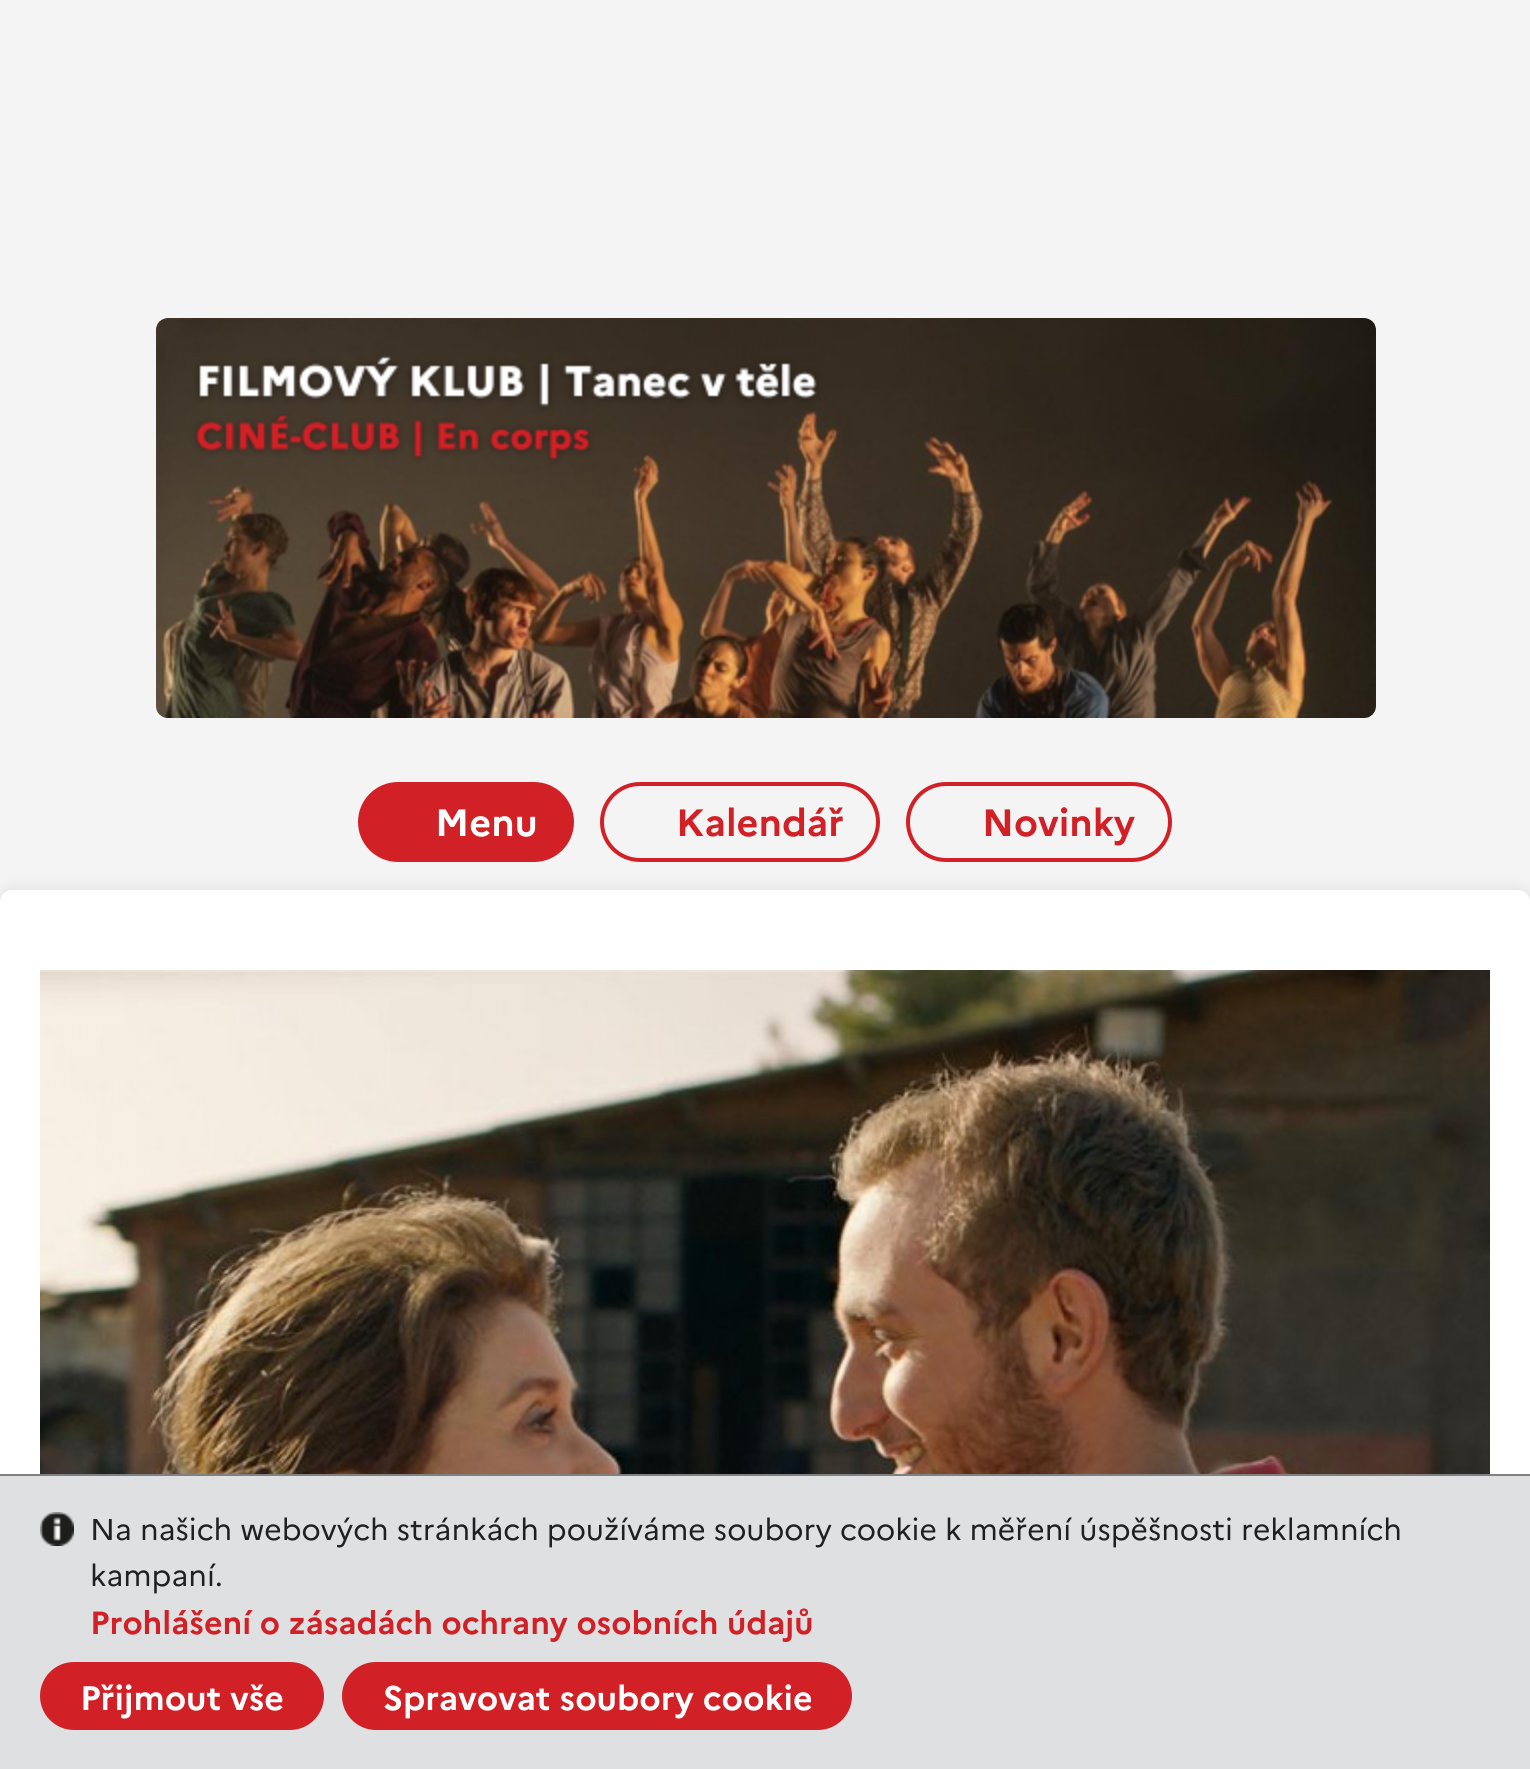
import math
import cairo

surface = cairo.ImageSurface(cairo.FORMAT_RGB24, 1530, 1769)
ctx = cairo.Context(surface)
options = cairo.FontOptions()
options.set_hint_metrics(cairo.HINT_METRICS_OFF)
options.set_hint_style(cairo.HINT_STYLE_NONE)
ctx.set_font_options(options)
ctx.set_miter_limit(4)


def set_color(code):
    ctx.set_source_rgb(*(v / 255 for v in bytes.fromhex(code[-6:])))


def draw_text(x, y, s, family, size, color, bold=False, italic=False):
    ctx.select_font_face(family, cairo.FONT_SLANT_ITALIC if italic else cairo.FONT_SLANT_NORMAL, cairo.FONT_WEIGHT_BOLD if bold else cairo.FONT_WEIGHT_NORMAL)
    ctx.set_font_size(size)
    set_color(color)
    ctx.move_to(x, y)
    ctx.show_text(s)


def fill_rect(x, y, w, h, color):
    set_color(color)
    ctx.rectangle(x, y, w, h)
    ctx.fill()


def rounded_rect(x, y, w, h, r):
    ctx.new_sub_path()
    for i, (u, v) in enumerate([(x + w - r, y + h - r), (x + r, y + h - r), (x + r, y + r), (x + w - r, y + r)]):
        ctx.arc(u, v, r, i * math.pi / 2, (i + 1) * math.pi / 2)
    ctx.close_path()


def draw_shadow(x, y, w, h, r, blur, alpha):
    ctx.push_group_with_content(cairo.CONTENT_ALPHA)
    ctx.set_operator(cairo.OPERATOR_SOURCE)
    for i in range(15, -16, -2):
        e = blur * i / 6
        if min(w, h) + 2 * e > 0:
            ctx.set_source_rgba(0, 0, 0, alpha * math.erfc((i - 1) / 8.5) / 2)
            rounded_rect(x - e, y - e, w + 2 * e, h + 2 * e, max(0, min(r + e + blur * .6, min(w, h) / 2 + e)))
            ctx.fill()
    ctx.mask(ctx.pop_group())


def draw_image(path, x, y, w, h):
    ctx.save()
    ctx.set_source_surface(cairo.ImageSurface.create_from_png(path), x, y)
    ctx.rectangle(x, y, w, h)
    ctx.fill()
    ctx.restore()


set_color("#f4f4f4")
ctx.paint()
draw_image("assets/img1.png", 156, 318, 1220, 400)
set_color("#d22027")
rounded_rect(360, 784, 212, 76, 38)
ctx.fill_preserve()
ctx.set_line_width(4)
ctx.stroke()
draw_text(435, 836, "Menu", "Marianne", 38, "#ffffff", bold=True)
rounded_rect(602, 784, 276, 76, 38)
set_color("#d22027")
ctx.stroke()
draw_text(676, 836, "Kalendář", "Marianne", 38, "#d22027", bold=True)
rounded_rect(908, 784, 262, 76, 38)
ctx.stroke()
draw_text(982, 836, "Novinky", "Marianne", 38, "#d22027", bold=True)
set_color("#000000")
draw_shadow(0, 890, 1530, 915, 12, 8, 0.1)
set_color("#ffffff")
rounded_rect(0, 890, 1530, 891, 12)
ctx.fill()
draw_image("assets/img2.png", 40, 970, 1450, 504)
fill_rect(0, 1474, 1530, 2, "#808080")
fill_rect(0, 1476, 1530, 293, "#dfe0e1")
draw_image("assets/img3.png", 40, 1512, 34, 34)
draw_text(90, 1540, "Na našich webových stránkách používáme soubory cookie k měření úspěšnosti reklamních", "Marianne", 30, "#1f2023")
draw_text(90, 1586, "kampaní.", "Marianne", 30, "#1f2023")
draw_text(90, 1634, "Prohlášení o zásadách ochrany osobních údajů", "Marianne", 32, "#d22027", bold=True)
rounded_rect(40, 1662, 284, 68, 34)
ctx.fill()
draw_text(80, 1710, "Přijmout vše", "Marianne", 34, "#ffffff", bold=True)
set_color("#d22027")
rounded_rect(342, 1662, 510, 68, 34)
ctx.fill()
draw_text(383, 1710, "Spravovat soubory cookie", "Marianne", 34, "#ffffff", bold=True)
surface.write_to_png("output.png")
